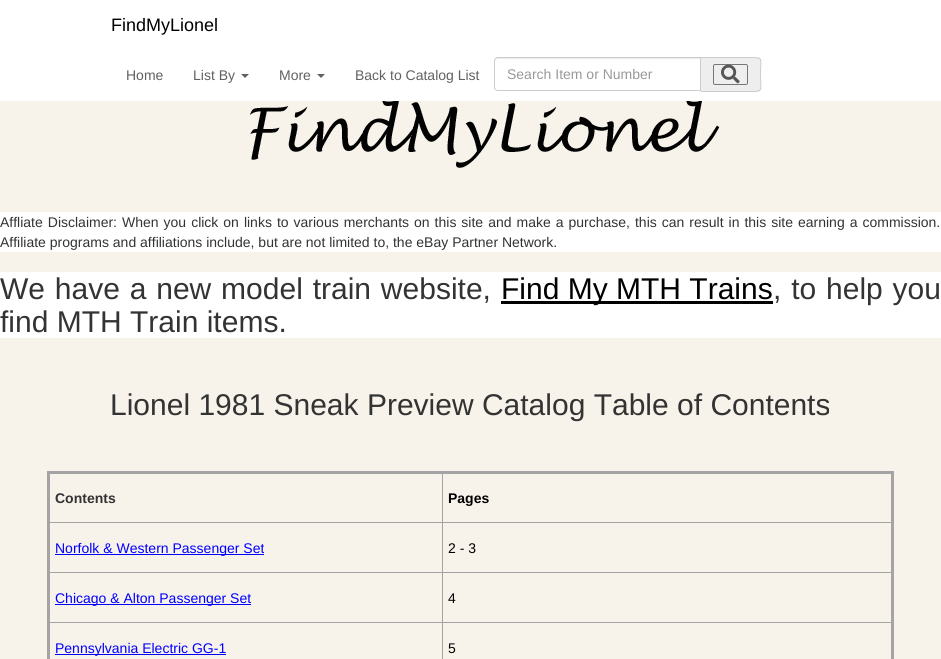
import math
import cairo

surface = cairo.ImageSurface(cairo.FORMAT_RGB24, 941, 659)
ctx = cairo.Context(surface)
options = cairo.FontOptions()
options.set_hint_metrics(cairo.HINT_METRICS_OFF)
options.set_hint_style(cairo.HINT_STYLE_NONE)
ctx.set_font_options(options)
ctx.set_miter_limit(4)


def set_color(code):
    ctx.set_source_rgb(*(v / 255 for v in bytes.fromhex(code[-6:])))


def draw_text(x, y, s, family, size, color, bold=False, italic=False):
    ctx.select_font_face(family, cairo.FONT_SLANT_ITALIC if italic else cairo.FONT_SLANT_NORMAL, cairo.FONT_WEIGHT_BOLD if bold else cairo.FONT_WEIGHT_NORMAL)
    ctx.set_font_size(size)
    set_color(color)
    ctx.move_to(x, y)
    ctx.show_text(s)


def draw_spaced(x, y, s, letter, word):
    ctx.move_to(x, y)
    for ch in s:
        ctx.show_text(ch)
        ctx.rel_move_to(letter + word * (ch == ' '), 0)


def fill_rect(x, y, w, h, color):
    set_color(color)
    ctx.rectangle(x, y, w, h)
    ctx.fill()


def rounded_rect(x, y, w, h, r):
    ctx.new_sub_path()
    for i, (u, v) in enumerate([(x + w - r, y + h - r), (x + r, y + h - r), (x + r, y + r), (x + w - r, y + r)]):
        ctx.arc(u, v, r, i * math.pi / 2, (i + 1) * math.pi / 2)
    ctx.close_path()


def draw_image(path, x, y, w, h):
    ctx.save()
    ctx.set_source_surface(cairo.ImageSurface.create_from_png(path), x, y)
    ctx.rectangle(x, y, w, h)
    ctx.fill()
    ctx.restore()


set_color("#f7f2ea")
ctx.paint()
fill_rect(0, 0, 941, 101, "#ffffff")
draw_text(111, 31, "FindMyLionel", "Liberation Sans", 18, "#000000")
draw_text(126, 80, "Home", "Liberation Sans", 14, "#616161")
draw_text(193, 80, "List By", "Liberation Sans", 14, "#616161")
ctx.new_path()
ctx.move_to(241, 74)
ctx.line_to(249, 74)
ctx.line_to(245, 78)
ctx.close_path()
ctx.fill()
draw_text(279, 80, "More", "Liberation Sans", 14, "#616161")
ctx.new_path()
ctx.move_to(317, 74)
ctx.line_to(325, 74)
ctx.line_to(321, 78)
ctx.close_path()
ctx.fill()
draw_text(355, 80, "Back to Catalog List", "Liberation Sans", 14, "#616161")
set_color("#ececec")
ctx.new_path()
ctx.move_to(498, 59)
ctx.line_to(700, 59)
ctx.line_to(700, 58)
ctx.line_to(497, 58)
ctx.curve_to(495, 59, 495, 60, 495, 62)
ctx.curve_to(495, 60, 496, 59, 498, 59)
ctx.close_path()
ctx.fill()
ctx.new_path()
ctx.move_to(498, 57.5)
ctx.line_to(700.5, 57.5)
ctx.line_to(700.5, 90.5)
ctx.line_to(498, 90.5)
ctx.curve_to(496, 90.5, 494.5, 89, 494.5, 87)
ctx.line_to(494.5, 61)
ctx.curve_to(494.5, 59, 496, 57.5, 498, 57.5)
ctx.close_path()
set_color("#cccccc")
ctx.set_line_width(1)
ctx.stroke()
draw_text(507, 79, "Search Item or Number", "Liberation Sans", 14, "#999999")
set_color("#eeeeee")
ctx.new_path()
ctx.move_to(701, 57)
ctx.line_to(757, 57)
ctx.curve_to(759, 57, 761, 59, 761, 61)
ctx.line_to(761, 88)
ctx.curve_to(761, 90, 759, 92, 757, 92)
ctx.line_to(701, 92)
ctx.close_path()
ctx.fill()
set_color("#cccccc")
ctx.set_fill_rule(cairo.FILL_RULE_EVEN_ODD)
ctx.new_path()
ctx.move_to(701, 57)
ctx.line_to(748, 57)
ctx.curve_to(765, 57, 761, 57, 761, 74)
ctx.curve_to(761, 92, 765, 92, 748, 92)
ctx.line_to(701, 92)
ctx.close_path()
ctx.move_to(701, 58)
ctx.line_to(748, 58)
ctx.curve_to(764, 58, 760, 58, 760, 74)
ctx.curve_to(760, 91, 764, 91, 748, 91)
ctx.line_to(701, 91)
ctx.close_path()
ctx.fill()
rounded_rect(713.5, 64.5, 34, 20, 1.5)
set_color("#767676")
ctx.stroke()
draw_image("assets/img1.png", 721, 64, 19, 20)
draw_image("assets/img2.png", 250, 101, 470, 67)
fill_rect(0, 212, 941, 40, "#ffffff")
set_color("#333333")
draw_spaced(0, 227, "Affliate Disclaimer: When you click on links to various merchants on this site and make a purchase, this can result in this site earning a commission.", 0, 1.1)
draw_text(0, 247, "Affiliate programs and affiliations include, but are not limited to, the eBay Partner Network.", "Liberation Sans", 14, "#333333")
fill_rect(0, 272, 941, 66, "#ffffff")
ctx.set_font_size(30)
set_color("#333333")
draw_spaced(0, 299, "We have a new model train website,", 0, 1.5)
fill_rect(501, 301, 272, 3, "#000000")
draw_text(501, 299, "Find My MTH Trains", "Liberation Sans", 30, "#000000")
set_color("#333333")
draw_spaced(773, 299, ", to help you", 0, 1.5)
draw_text(0, 332, "find MTH Train items.", "Liberation Sans", 30, "#333333")
draw_text(110, 415, "Lionel 1981 Sneak Preview Catalog Table of Contents", "Liberation Sans", 30, "#333333")
fill_rect(442, 522, 451, 1, "#a4a4a4")
fill_rect(442, 572, 451, 1, "#a4a4a4")
fill_rect(442, 622, 451, 1, "#a4a4a4")
fill_rect(442, 622, 1, 37, "#a4a4a4")
fill_rect(48, 622, 395, 1, "#a4a4a4")
fill_rect(442, 572, 1, 51, "#a4a4a4")
fill_rect(48, 572, 395, 1, "#a4a4a4")
fill_rect(442, 522, 1, 51, "#a4a4a4")
fill_rect(48, 522, 395, 1, "#a4a4a4")
fill_rect(442, 472, 1, 51, "#a4a4a4")
fill_rect(47, 471, 847, 3, "#a4a4a4")
fill_rect(891, 471, 3, 188, "#a4a4a4")
fill_rect(47, 471, 3, 188, "#a4a4a4")
draw_text(55, 503, "Contents", "Liberation Sans", 14, "#333333", bold=True)
draw_text(448, 503, "Pages", "Liberation Sans", 14, "#000000", bold=True)
fill_rect(55, 554, 209, 1, "#0000ff")
draw_text(55, 553, "Norfolk & Western Passenger Set", "Liberation Sans", 14, "#0000ff")
draw_text(448, 553, "2 - 3", "Liberation Sans", 14, "#000000")
fill_rect(55, 604, 196, 1, "#0000ff")
draw_text(55, 603, "Chicago & Alton Passenger Set", "Liberation Sans", 14, "#0000ff")
draw_text(448, 603, "4", "Liberation Sans", 14, "#000000")
fill_rect(55, 654, 171, 1, "#0000ff")
draw_text(55, 653, "Pennsylvania Electric GG-1", "Liberation Sans", 14, "#0000ff")
draw_text(448, 653, "5", "Liberation Sans", 14, "#000000")
surface.write_to_png("output.png")
